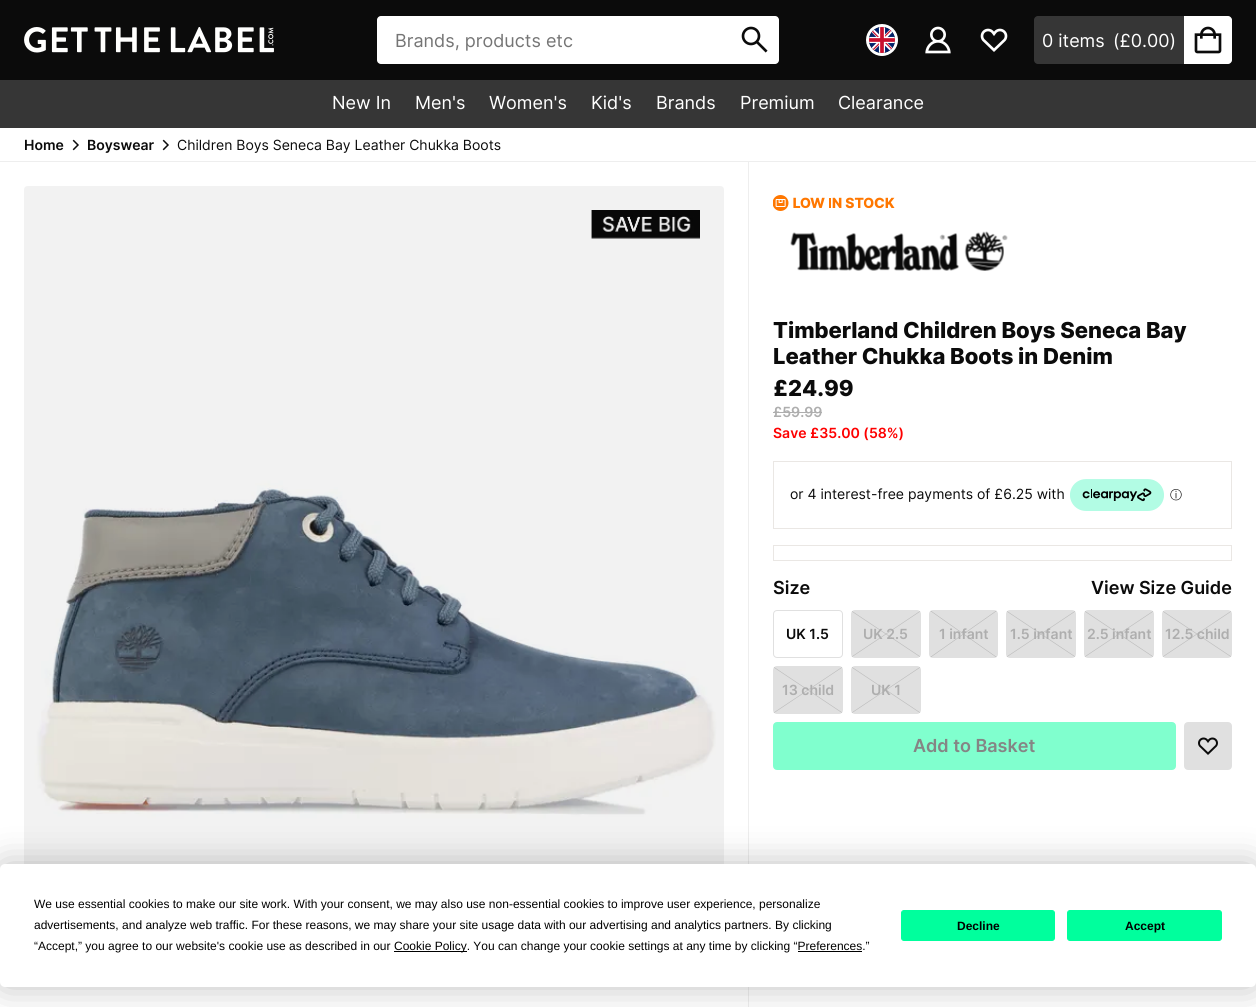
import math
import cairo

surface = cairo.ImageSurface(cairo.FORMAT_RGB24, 1256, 1007)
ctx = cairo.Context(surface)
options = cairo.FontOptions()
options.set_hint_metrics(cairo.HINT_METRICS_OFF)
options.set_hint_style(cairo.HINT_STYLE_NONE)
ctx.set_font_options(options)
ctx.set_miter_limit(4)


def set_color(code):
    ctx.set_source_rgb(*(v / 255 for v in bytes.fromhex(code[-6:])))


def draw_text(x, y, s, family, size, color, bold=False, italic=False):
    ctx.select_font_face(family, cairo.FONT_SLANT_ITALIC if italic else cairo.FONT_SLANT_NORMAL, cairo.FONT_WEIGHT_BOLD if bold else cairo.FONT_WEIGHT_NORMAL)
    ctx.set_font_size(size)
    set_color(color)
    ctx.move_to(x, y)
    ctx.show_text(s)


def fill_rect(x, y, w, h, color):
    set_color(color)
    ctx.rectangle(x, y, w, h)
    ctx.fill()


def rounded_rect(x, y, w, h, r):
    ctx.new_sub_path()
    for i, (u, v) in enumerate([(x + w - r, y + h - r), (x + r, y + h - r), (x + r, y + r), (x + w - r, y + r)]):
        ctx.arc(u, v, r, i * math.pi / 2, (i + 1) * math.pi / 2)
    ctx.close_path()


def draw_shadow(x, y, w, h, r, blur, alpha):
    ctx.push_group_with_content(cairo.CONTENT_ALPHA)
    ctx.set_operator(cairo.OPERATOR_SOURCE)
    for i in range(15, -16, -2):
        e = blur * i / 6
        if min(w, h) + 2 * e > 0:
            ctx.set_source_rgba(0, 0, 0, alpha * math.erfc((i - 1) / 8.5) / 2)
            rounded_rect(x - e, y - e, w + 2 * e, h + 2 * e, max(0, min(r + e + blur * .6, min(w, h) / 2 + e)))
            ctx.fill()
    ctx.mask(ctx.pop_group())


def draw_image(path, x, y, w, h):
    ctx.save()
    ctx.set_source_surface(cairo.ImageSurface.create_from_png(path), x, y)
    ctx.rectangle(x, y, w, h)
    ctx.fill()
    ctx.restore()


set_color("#ffffff")
ctx.paint()
fill_rect(0, 0, 1256, 80, "#0b0b0b")
draw_image("assets/img1.png", 24, 27, 250, 26)
set_color("#ffffff")
rounded_rect(377, 16, 402, 48, 4)
ctx.fill()
draw_text(395, 47, "Brands, products etc", "Inter", 18, "#757575")
draw_image("assets/img2.png", 741, 26, 27, 27)
ctx.arc(882, 40, 14.5, 0, 2 * math.pi)
set_color("#ffffff")
ctx.set_line_width(3)
ctx.stroke()
draw_image("assets/img3.png", 869, 27, 26, 26)
draw_image("assets/img4.png", 925, 26, 26, 28)
draw_image("assets/img5.png", 980, 28, 28, 24)
set_color("#363636")
rounded_rect(1034, 16, 198, 48, 4)
ctx.fill()
draw_text(1042, 47, "0 items", "Inter", 18, "#ffffff")
draw_text(1113, 47, "(£0.00)", "Inter", 18, "#ffffff")
ctx.new_path()
ctx.move_to(1184, 16)
ctx.line_to(1228, 16)
ctx.curve_to(1230, 16, 1232, 18, 1232, 20)
ctx.line_to(1232, 60)
ctx.curve_to(1232, 62, 1230, 64, 1228, 64)
ctx.line_to(1184, 64)
ctx.close_path()
ctx.fill()
draw_image("assets/img6.png", 1194, 26, 28, 28)
fill_rect(0, 80, 1256, 48, "#363636")
draw_text(332, 109, "New In", "Inter", 18, "#ffffff")
draw_text(415, 109, "Men's", "Inter", 18, "#ffffff")
draw_text(489, 109, "Women's", "Inter", 18, "#ffffff")
draw_text(591, 109, "Kid's", "Inter", 18, "#ffffff")
draw_text(656, 109, "Brands", "Inter", 18, "#ffffff")
draw_text(740, 109, "Premium", "Inter", 18, "#ffffff")
draw_text(838, 109, "Clearance", "Inter", 18, "#ffffff")
fill_rect(0, 161, 1256, 1, "#eeeeee")
draw_text(24, 150, "Home", "Inter SemiBold", 14, "#0b0b0b")
draw_image("assets/img7.png", 72, 139, 7, 12)
draw_text(87, 150, "Boyswear", "Inter SemiBold", 14, "#0b0b0b")
draw_image("assets/img7.png", 162, 139, 7, 12)
draw_text(177, 150, "Children Boys Seneca Bay Leather Chukka Boots", "Inter", 14, "#0b0b0b")
fill_rect(748, 162, 1, 845, "#eeeeee")
draw_image("assets/img8.png", 24, 186, 700, 678)
draw_image("assets/img9.png", 591, 210, 109, 29)
draw_image("assets/img10.png", 773, 195, 122, 16)
draw_image("assets/img11.png", 790, 231, 218, 40)
draw_text(773, 338, "Timberland Children Boys Seneca Bay", "Inter ExtraBold", 22, "#0b0b0b")
draw_text(773, 364, "Leather Chukka Boots in Denim", "Inter ExtraBold", 22, "#0b0b0b")
draw_text(773, 396, "£24.99", "Inter ExtraBold", 22, "#0b0b0b")
draw_text(773, 417, "£59.99", "Inter SemiBold", 14, "#aeaeae")
fill_rect(773, 412, 49, 1, "#aeaeae")
draw_text(773, 438, "Save £35.00 (58%)", "Inter SemiBold", 14, "#fe0000")
ctx.rectangle(773.5, 461.5, 458, 67)
set_color("#eae7e4")
ctx.set_line_width(1)
ctx.stroke()
draw_text(790, 499, "or 4 interest-free payments of £6.25 with", "Inter", 14, "#0b0b0b")
draw_image("assets/img12.png", 1070, 479, 94, 32)
draw_text(1170, 499, "ⓘ", "WenQuanYi Zen Hei Medium", 12, "#0b0b0b")
ctx.rectangle(773.5, 545.5, 458, 15)
set_color("#eae7e4")
ctx.stroke()
draw_text(773, 594, "Size", "Inter SemiBold", 18, "#0b0b0b")
draw_text(1091, 594, "View Size Guide", "Inter SemiBold", 18, "#0b0b0b")
rounded_rect(773.5, 610.5, 69, 47, 3.5)
set_color("#e0e0e0")
ctx.stroke()
draw_text(786, 639, "UK 1.5", "Inter SemiBold", 14, "#0b0b0b")
set_color("#e0e0e0")
rounded_rect(851, 610, 70, 48, 4)
ctx.fill()
gradient = cairo.LinearGradient(864, 667, 908, 601)
gradient.add_color_stop_rgba(0, 0, 0, 0, 0)
gradient.add_color_stop_rgba(0.49, 0.769, 0.769, 0.769, 0)
gradient.add_color_stop_rgba(0.5, 0.769, 0.769, 0.769, 1)
gradient.add_color_stop_rgba(0.51, 0.769, 0.769, 0.769, 0)
gradient.add_color_stop_rgba(1, 0, 0, 0, 0)
ctx.set_source(gradient)
rounded_rect(851, 610, 70, 48, 4)
ctx.fill()
gradient = cairo.LinearGradient(908, 667, 864, 601)
gradient.add_color_stop_rgba(0, 0, 0, 0, 0)
gradient.add_color_stop_rgba(0.49, 0.769, 0.769, 0.769, 0)
gradient.add_color_stop_rgba(0.5, 0.769, 0.769, 0.769, 1)
gradient.add_color_stop_rgba(0.51, 0.769, 0.769, 0.769, 0)
gradient.add_color_stop_rgba(1, 0, 0, 0, 0)
ctx.set_source(gradient)
rounded_rect(851, 610, 70, 48, 4)
ctx.fill()
draw_text(863, 639, "UK 2.5", "Inter SemiBold", 14, "#aeaeae")
set_color("#e0e0e0")
rounded_rect(929, 610, 69, 48, 4)
ctx.fill()
gradient = cairo.LinearGradient(941, 666, 986, 602)
gradient.add_color_stop_rgba(0, 0, 0, 0, 0)
gradient.add_color_stop_rgba(0.49, 0.769, 0.769, 0.769, 0)
gradient.add_color_stop_rgba(0.5, 0.769, 0.769, 0.769, 1)
gradient.add_color_stop_rgba(0.51, 0.769, 0.769, 0.769, 0)
gradient.add_color_stop_rgba(1, 0, 0, 0, 0)
ctx.set_source(gradient)
rounded_rect(929, 610, 69, 48, 4)
ctx.fill()
gradient = cairo.LinearGradient(986, 666, 941, 602)
gradient.add_color_stop_rgba(0, 0, 0, 0, 0)
gradient.add_color_stop_rgba(0.49, 0.769, 0.769, 0.769, 0)
gradient.add_color_stop_rgba(0.5, 0.769, 0.769, 0.769, 1)
gradient.add_color_stop_rgba(0.51, 0.769, 0.769, 0.769, 0)
gradient.add_color_stop_rgba(1, 0, 0, 0, 0)
ctx.set_source(gradient)
rounded_rect(929, 610, 69, 48, 4)
ctx.fill()
draw_text(939, 639, "1 infant", "Inter SemiBold", 14, "#aeaeae")
set_color("#e0e0e0")
rounded_rect(1006, 610, 70, 48, 4)
ctx.fill()
gradient = cairo.LinearGradient(1019, 667, 1063, 601)
gradient.add_color_stop_rgba(0, 0, 0, 0, 0)
gradient.add_color_stop_rgba(0.49, 0.769, 0.769, 0.769, 0)
gradient.add_color_stop_rgba(0.5, 0.769, 0.769, 0.769, 1)
gradient.add_color_stop_rgba(0.51, 0.769, 0.769, 0.769, 0)
gradient.add_color_stop_rgba(1, 0, 0, 0, 0)
ctx.set_source(gradient)
rounded_rect(1006, 610, 70, 48, 4)
ctx.fill()
gradient = cairo.LinearGradient(1063, 667, 1019, 601)
gradient.add_color_stop_rgba(0, 0, 0, 0, 0)
gradient.add_color_stop_rgba(0.49, 0.769, 0.769, 0.769, 0)
gradient.add_color_stop_rgba(0.5, 0.769, 0.769, 0.769, 1)
gradient.add_color_stop_rgba(0.51, 0.769, 0.769, 0.769, 0)
gradient.add_color_stop_rgba(1, 0, 0, 0, 0)
ctx.set_source(gradient)
rounded_rect(1006, 610, 70, 48, 4)
ctx.fill()
draw_text(1010, 639, "1.5 infant", "Inter SemiBold", 14, "#aeaeae")
set_color("#e0e0e0")
rounded_rect(1084, 610, 70, 48, 4)
ctx.fill()
gradient = cairo.LinearGradient(1097, 667, 1141, 601)
gradient.add_color_stop_rgba(0, 0, 0, 0, 0)
gradient.add_color_stop_rgba(0.49, 0.769, 0.769, 0.769, 0)
gradient.add_color_stop_rgba(0.5, 0.769, 0.769, 0.769, 1)
gradient.add_color_stop_rgba(0.51, 0.769, 0.769, 0.769, 0)
gradient.add_color_stop_rgba(1, 0, 0, 0, 0)
ctx.set_source(gradient)
rounded_rect(1084, 610, 70, 48, 4)
ctx.fill()
gradient = cairo.LinearGradient(1141, 667, 1097, 601)
gradient.add_color_stop_rgba(0, 0, 0, 0, 0)
gradient.add_color_stop_rgba(0.49, 0.769, 0.769, 0.769, 0)
gradient.add_color_stop_rgba(0.5, 0.769, 0.769, 0.769, 1)
gradient.add_color_stop_rgba(0.51, 0.769, 0.769, 0.769, 0)
gradient.add_color_stop_rgba(1, 0, 0, 0, 0)
ctx.set_source(gradient)
rounded_rect(1084, 610, 70, 48, 4)
ctx.fill()
draw_text(1087, 639, "2.5 infant", "Inter SemiBold", 14, "#aeaeae")
set_color("#e0e0e0")
rounded_rect(1162, 610, 70, 48, 4)
ctx.fill()
gradient = cairo.LinearGradient(1175, 667, 1219, 601)
gradient.add_color_stop_rgba(0, 0, 0, 0, 0)
gradient.add_color_stop_rgba(0.49, 0.769, 0.769, 0.769, 0)
gradient.add_color_stop_rgba(0.5, 0.769, 0.769, 0.769, 1)
gradient.add_color_stop_rgba(0.51, 0.769, 0.769, 0.769, 0)
gradient.add_color_stop_rgba(1, 0, 0, 0, 0)
ctx.set_source(gradient)
rounded_rect(1162, 610, 70, 48, 4)
ctx.fill()
gradient = cairo.LinearGradient(1219, 667, 1175, 601)
gradient.add_color_stop_rgba(0, 0, 0, 0, 0)
gradient.add_color_stop_rgba(0.49, 0.769, 0.769, 0.769, 0)
gradient.add_color_stop_rgba(0.5, 0.769, 0.769, 0.769, 1)
gradient.add_color_stop_rgba(0.51, 0.769, 0.769, 0.769, 0)
gradient.add_color_stop_rgba(1, 0, 0, 0, 0)
ctx.set_source(gradient)
rounded_rect(1162, 610, 70, 48, 4)
ctx.fill()
draw_text(1165, 639, "12.5 child", "Inter SemiBold", 14, "#aeaeae")
set_color("#e0e0e0")
rounded_rect(773, 666, 70, 48, 4)
ctx.fill()
gradient = cairo.LinearGradient(786, 723, 830, 657)
gradient.add_color_stop_rgba(0, 0, 0, 0, 0)
gradient.add_color_stop_rgba(0.49, 0.769, 0.769, 0.769, 0)
gradient.add_color_stop_rgba(0.5, 0.769, 0.769, 0.769, 1)
gradient.add_color_stop_rgba(0.51, 0.769, 0.769, 0.769, 0)
gradient.add_color_stop_rgba(1, 0, 0, 0, 0)
ctx.set_source(gradient)
rounded_rect(773, 666, 70, 48, 4)
ctx.fill()
gradient = cairo.LinearGradient(830, 723, 786, 657)
gradient.add_color_stop_rgba(0, 0, 0, 0, 0)
gradient.add_color_stop_rgba(0.49, 0.769, 0.769, 0.769, 0)
gradient.add_color_stop_rgba(0.5, 0.769, 0.769, 0.769, 1)
gradient.add_color_stop_rgba(0.51, 0.769, 0.769, 0.769, 0)
gradient.add_color_stop_rgba(1, 0, 0, 0, 0)
ctx.set_source(gradient)
rounded_rect(773, 666, 70, 48, 4)
ctx.fill()
draw_text(782, 695, "13 child", "Inter SemiBold", 14, "#aeaeae")
set_color("#e0e0e0")
rounded_rect(851, 666, 70, 48, 4)
ctx.fill()
gradient = cairo.LinearGradient(864, 723, 908, 657)
gradient.add_color_stop_rgba(0, 0, 0, 0, 0)
gradient.add_color_stop_rgba(0.49, 0.769, 0.769, 0.769, 0)
gradient.add_color_stop_rgba(0.5, 0.769, 0.769, 0.769, 1)
gradient.add_color_stop_rgba(0.51, 0.769, 0.769, 0.769, 0)
gradient.add_color_stop_rgba(1, 0, 0, 0, 0)
ctx.set_source(gradient)
rounded_rect(851, 666, 70, 48, 4)
ctx.fill()
gradient = cairo.LinearGradient(908, 723, 864, 657)
gradient.add_color_stop_rgba(0, 0, 0, 0, 0)
gradient.add_color_stop_rgba(0.49, 0.769, 0.769, 0.769, 0)
gradient.add_color_stop_rgba(0.5, 0.769, 0.769, 0.769, 1)
gradient.add_color_stop_rgba(0.51, 0.769, 0.769, 0.769, 0)
gradient.add_color_stop_rgba(1, 0, 0, 0, 0)
ctx.set_source(gradient)
rounded_rect(851, 666, 70, 48, 4)
ctx.fill()
draw_text(871, 695, "UK 1", "Inter SemiBold", 14, "#aeaeae")
set_color("#80ffce")
rounded_rect(774, 723, 401, 46, 3)
ctx.fill_preserve()
ctx.set_line_width(2)
ctx.stroke()
draw_text(913, 752, "Add to Basket", "Inter SemiBold", 18, "#858585")
set_color("#e0e0e0")
rounded_rect(1185, 723, 46, 46, 3)
ctx.fill_preserve()
ctx.stroke()
draw_image("assets/img13.png", 1198, 737, 20, 18)
set_color("#000000")
draw_shadow(0, 864, 1256, 123, 5, 17.5, 0.25)
set_color("#ffffff")
rounded_rect(0, 864, 1256, 123, 5)
ctx.fill()
draw_text(34, 908, "We use essential cookies to make our site work. With your consent, we may also use non-essential cookies to improve user experience, personalize", "Liberation Sans", 12, "#000000")
draw_text(34, 929, "advertisements, and analyze web traffic. For these reasons, we may share your site usage data with our advertising and analytics partners. By clicking", "Liberation Sans", 12, "#000000")
draw_text(34, 950, "“Accept,” you agree to our website's cookie use as described in our", "Liberation Sans", 12, "#000000")
fill_rect(394, 951, 73, 1, "#000000")
draw_text(394, 950, "Cookie Policy. You can change your cookie settings at any time by clicking “Preferences.”", "Liberation Sans", 12, "#000000")
fill_rect(798, 951, 64, 1, "#000000")
set_color("#00ff9d")
rounded_rect(901.5, 910.5, 153, 30, 2.5)
ctx.fill_preserve()
ctx.set_line_width(1)
ctx.stroke()
draw_text(957, 930, "Decline", "Liberation Sans", 12, "#000000", bold=True)
set_color("#00ff9d")
rounded_rect(1067.5, 910.5, 154, 30, 2.5)
ctx.fill_preserve()
ctx.stroke()
draw_text(1125, 930, "Accept", "Liberation Sans", 12, "#000000", bold=True)
surface.write_to_png("output.png")
